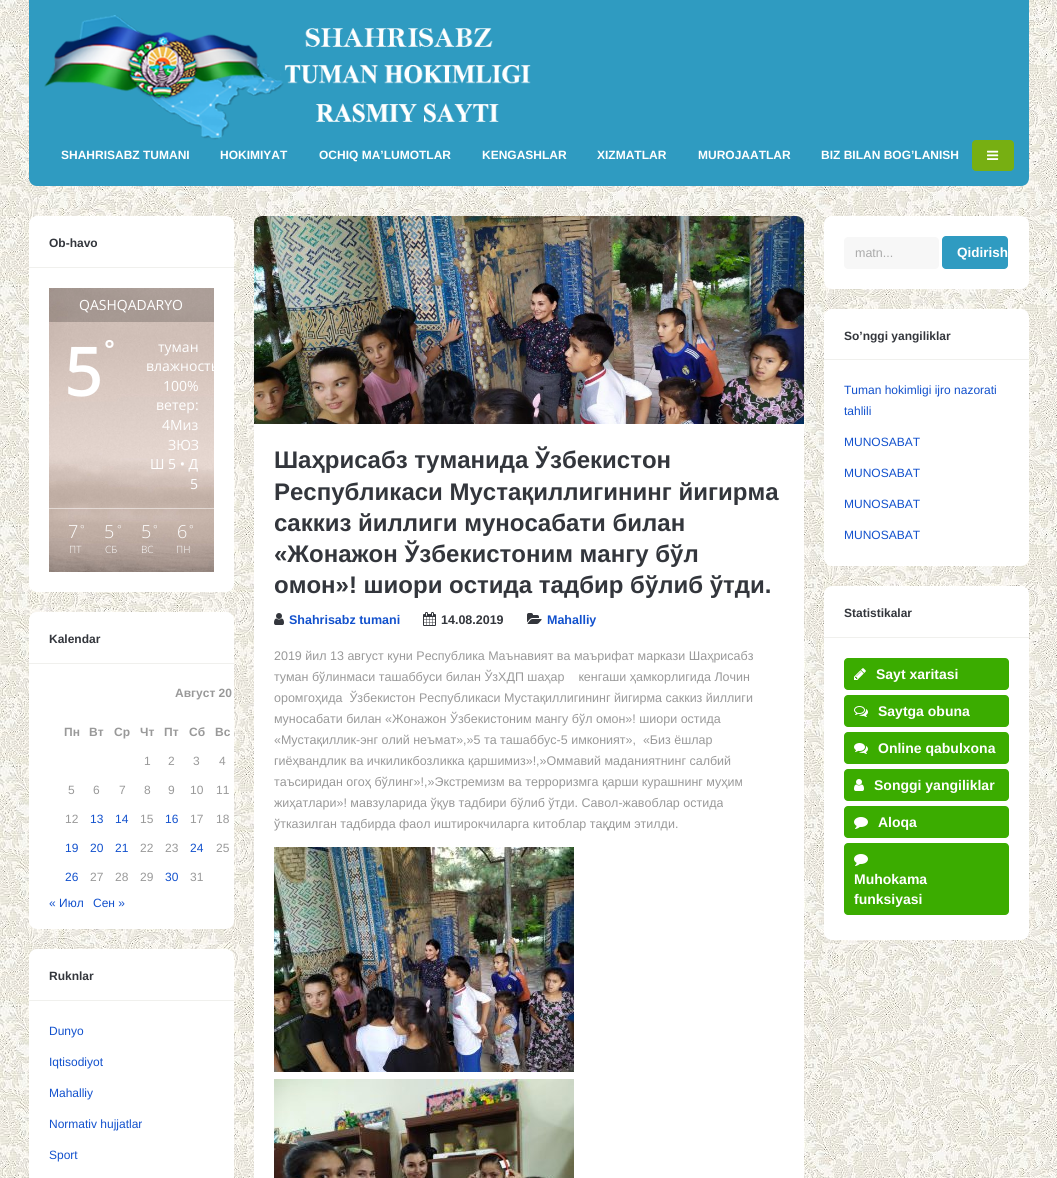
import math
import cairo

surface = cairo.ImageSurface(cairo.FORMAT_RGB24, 1057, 1178)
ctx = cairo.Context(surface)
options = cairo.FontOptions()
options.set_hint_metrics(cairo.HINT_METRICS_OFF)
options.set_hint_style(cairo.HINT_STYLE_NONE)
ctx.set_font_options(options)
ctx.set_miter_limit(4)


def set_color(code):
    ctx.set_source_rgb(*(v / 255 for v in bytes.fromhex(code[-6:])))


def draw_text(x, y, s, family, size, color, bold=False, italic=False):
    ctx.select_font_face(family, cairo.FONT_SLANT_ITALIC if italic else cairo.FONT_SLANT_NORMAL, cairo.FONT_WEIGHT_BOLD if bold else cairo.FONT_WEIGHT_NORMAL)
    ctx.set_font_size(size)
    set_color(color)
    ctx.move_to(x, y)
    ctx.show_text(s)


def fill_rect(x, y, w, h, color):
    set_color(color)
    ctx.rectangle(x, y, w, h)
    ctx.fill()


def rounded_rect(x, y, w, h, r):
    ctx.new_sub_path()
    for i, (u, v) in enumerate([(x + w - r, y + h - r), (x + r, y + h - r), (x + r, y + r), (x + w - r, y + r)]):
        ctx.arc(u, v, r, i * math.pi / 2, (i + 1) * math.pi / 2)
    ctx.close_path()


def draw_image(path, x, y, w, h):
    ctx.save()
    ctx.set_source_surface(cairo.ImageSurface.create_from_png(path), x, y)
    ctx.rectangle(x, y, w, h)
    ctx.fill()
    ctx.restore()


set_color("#ffffff")
ctx.paint()
draw_image("assets/img1.png", 0, 0, 1057, 1178)
set_color("#2f9bc1")
ctx.new_path()
ctx.move_to(29, 0)
ctx.line_to(1029, 0)
ctx.line_to(1029, 178)
ctx.curve_to(1029, 182.5, 1025.5, 186, 1021, 186)
ctx.line_to(37, 186)
ctx.curve_to(32.5, 186, 29, 182.5, 29, 178)
ctx.close_path()
ctx.fill()
draw_image("assets/img2.png", 44, 15, 487, 125)
draw_text(61, 159, "SHAHRISABZ TUMANI", "Liberation Sans", 12, "#ffffff", bold=True)
draw_text(220, 159, "HOKIMIYAT", "Liberation Sans", 12, "#ffffff", bold=True)
draw_text(319, 159, "OCHIQ MA’LUMOTLAR", "Liberation Sans", 12, "#ffffff", bold=True)
draw_text(482, 159, "KENGASHLAR", "Liberation Sans", 12, "#ffffff", bold=True)
draw_text(597, 159, "XIZMATLAR", "Liberation Sans", 12, "#ffffff", bold=True)
draw_text(698, 159, "MUROJAATLAR", "Liberation Sans", 12, "#ffffff", bold=True)
draw_text(821, 159, "BIZ BILAN BOG’LANISH", "Liberation Sans", 12, "#ffffff", bold=True)
set_color("#77af12")
rounded_rect(972, 140, 42, 31, 4)
ctx.fill()
draw_image("assets/img3.png", 987, 150, 12, 10)
set_color("#ffffff")
rounded_rect(29, 216, 205, 376, 8)
ctx.fill()
fill_rect(29, 267, 205, 1, "#f0f0ed")
draw_text(49, 247, "Ob-havo", "Liberation Sans", 12, "#33363c", bold=True)
draw_image("assets/img4.png", 49, 288, 165, 284)
ctx.set_source_rgba(0, 0, 0, 0.2)
ctx.rectangle(49, 288, 165, 34)
ctx.fill()
draw_text(79, 310, "QASHQADARYO", "Open Sans", 14, "#ffffff")
draw_text(104, 358, "°", "Open Sans", 24, "#ffffff", bold=True)
draw_text(64, 396, "5", "Open Sans", 66, "#ffffff", bold=True)
draw_text(158, 352, "туман", "Open Sans", 14, "#ffffff")
draw_text(146, 371, "влажность", "Open Sans", 14, "#ffffff")
draw_text(163, 391, "100%", "Open Sans", 14, "#ffffff")
draw_text(156, 410, "ветер:", "Open Sans", 14, "#ffffff")
draw_text(162, 430, "4Миз", "Open Sans", 14, "#ffffff")
draw_text(168, 450, "ЗЮЗ", "Open Sans", 14, "#ffffff")
draw_text(150, 469, "Ш 5 • Д", "Open Sans", 14, "#ffffff")
draw_text(190, 489, "5", "Open Sans", 14, "#ffffff")
ctx.set_source_rgba(1, 1, 1, 0.5)
ctx.rectangle(49, 508, 165, 1)
ctx.fill()
draw_text(68, 538, "7", "Open Sans Light", 18, "#ffffff")
draw_text(80, 533, "°", "Open Sans Light", 11, "#ffffff")
draw_text(69, 553, "ПТ", "Open Sans Light", 10, "#ffffff")
draw_text(104, 538, "5", "Open Sans Light", 18, "#ffffff")
draw_text(117, 533, "°", "Open Sans Light", 11, "#ffffff")
draw_text(105, 553, "СБ", "Open Sans Light", 10, "#ffffff")
draw_text(141, 538, "5", "Open Sans Light", 18, "#ffffff")
draw_text(153, 533, "°", "Open Sans Light", 11, "#ffffff")
draw_text(141, 553, "ВС", "Open Sans Light", 10, "#ffffff")
draw_text(177, 538, "6", "Open Sans Light", 18, "#ffffff")
draw_text(189, 533, "°", "Open Sans Light", 11, "#ffffff")
draw_text(176, 553, "ПН", "Open Sans Light", 10, "#ffffff")
rounded_rect(29, 612, 205, 317, 8)
ctx.fill()
fill_rect(29, 663, 205, 1, "#f0f0ed")
draw_text(49, 643, "Kalendar", "Liberation Sans", 12, "#33363c", bold=True)
draw_text(175, 697, "Август 20", "Liberation Sans", 12, "#999999", bold=True)
draw_text(64, 736, "Пн", "Liberation Sans", 12, "#999999", bold=True)
draw_text(89, 736, "Вт", "Liberation Sans", 12, "#999999", bold=True)
draw_text(114, 736, "Ср", "Liberation Sans", 12, "#999999", bold=True)
draw_text(140, 736, "Чт", "Liberation Sans", 12, "#999999", bold=True)
draw_text(164, 736, "Пт", "Liberation Sans", 12, "#999999", bold=True)
draw_text(189, 736, "Сб", "Liberation Sans", 12, "#999999", bold=True)
draw_text(215, 736, "Вс", "Liberation Sans", 12, "#999999", bold=True)
draw_text(144, 765, "1", "Liberation Sans", 12, "#999999")
draw_text(168, 765, "2", "Liberation Sans", 12, "#999999")
draw_text(193, 765, "3", "Liberation Sans", 12, "#999999")
draw_text(219, 765, "4", "Liberation Sans", 12, "#999999")
draw_text(68, 794, "5", "Liberation Sans", 12, "#999999")
draw_text(93, 794, "6", "Liberation Sans", 12, "#999999")
draw_text(119, 794, "7", "Liberation Sans", 12, "#999999")
draw_text(144, 794, "8", "Liberation Sans", 12, "#999999")
draw_text(168, 794, "9", "Liberation Sans", 12, "#999999")
draw_text(190, 794, "10", "Liberation Sans", 12, "#999999")
draw_text(216, 794, "11", "Liberation Sans", 12, "#999999")
draw_text(65, 823, "12", "Liberation Sans", 12, "#999999")
draw_text(90, 823, "13", "Liberation Sans", 12, "#1251cd")
draw_text(115, 823, "14", "Liberation Sans", 12, "#1251cd")
draw_text(140, 823, "15", "Liberation Sans", 12, "#999999")
draw_text(165, 823, "16", "Liberation Sans", 12, "#1251cd")
draw_text(190, 823, "17", "Liberation Sans", 12, "#999999")
draw_text(216, 823, "18", "Liberation Sans", 12, "#999999")
draw_text(65, 852, "19", "Liberation Sans", 12, "#1251cd")
draw_text(90, 852, "20", "Liberation Sans", 12, "#1251cd")
draw_text(115, 852, "21", "Liberation Sans", 12, "#1251cd")
draw_text(140, 852, "22", "Liberation Sans", 12, "#999999")
draw_text(165, 852, "23", "Liberation Sans", 12, "#999999")
draw_text(190, 852, "24", "Liberation Sans", 12, "#1251cd")
draw_text(216, 852, "25", "Liberation Sans", 12, "#999999")
draw_text(65, 881, "26", "Liberation Sans", 12, "#1251cd")
draw_text(90, 881, "27", "Liberation Sans", 12, "#999999")
draw_text(115, 881, "28", "Liberation Sans", 12, "#999999")
draw_text(140, 881, "29", "Liberation Sans", 12, "#999999")
draw_text(165, 881, "30", "Liberation Sans", 12, "#1251cd")
draw_text(190, 881, "31", "Liberation Sans", 12, "#999999")
draw_text(49, 907, "« Июл", "Liberation Sans", 12, "#1251cd")
draw_text(93, 907, "Сен »", "Liberation Sans", 12, "#1251cd")
set_color("#ffffff")
rounded_rect(29, 949, 205, 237, 8)
ctx.fill()
fill_rect(29, 1000, 205, 1, "#f0f0ed")
draw_text(49, 980, "Ruknlar", "Liberation Sans", 12, "#33363c", bold=True)
draw_text(49, 1035, "Dunyo", "Liberation Sans", 12, "#1251cd")
draw_text(49, 1066, "Iqtisodiyot", "Liberation Sans", 12, "#1251cd")
draw_text(49, 1097, "Mahalliy", "Liberation Sans", 12, "#1251cd")
draw_text(49, 1128, "Normativ hujjatlar", "Liberation Sans", 12, "#1251cd")
draw_text(49, 1159, "Sport", "Liberation Sans", 12, "#1251cd")
draw_image("assets/img5.png", 254, 216, 550, 208)
fill_rect(254, 424, 550, 754, "#ffffff")
draw_text(274, 468, "Шаҳрисабз туманида Ўзбекистон", "Liberation Sans", 24, "#33363c", bold=True)
draw_text(274, 500, "Республикаси Мустақиллигининг йигирма", "Liberation Sans", 24, "#33363c", bold=True)
draw_text(274, 531, "саккиз йиллиги муносабати билан", "Liberation Sans", 24, "#33363c", bold=True)
draw_text(274, 562, "«Жонажон Ўзбекистоним мангу бўл", "Liberation Sans", 24, "#33363c", bold=True)
draw_text(274, 593, "омон»! шиори остида тадбир бўлиб ўтди.", "Liberation Sans", 24, "#33363c", bold=True)
draw_image("assets/img6.png", 274, 613, 10, 12)
draw_text(289, 624, "Shahrisabz tumani", "Liberation Sans", 12.5, "#1251cd", bold=True)
draw_image("assets/img7.png", 423, 612, 13, 14)
draw_text(441, 624, "14.08.2019", "Liberation Sans", 12.5, "#33363c", bold=True)
draw_image("assets/img8.png", 527, 613, 15, 11)
draw_text(547, 624, "Mahalliy", "Liberation Sans", 12.5, "#1251cd", bold=True)
draw_text(274, 660, "2019 йил 13 август куни Республика Маънавият ва маърифат маркази Шаҳрисабз", "Liberation Sans", 12.5, "#999999")
draw_text(274, 681, "туман бўлинмаси ташаббуси билан ЎзХДП шаҳар    кенгаши ҳамкорлигида Лочин", "Liberation Sans", 12.5, "#999999")
draw_text(274, 702, "оромгоҳида  Ўзбекистон Республикаси Мустақиллигининг йигирма саккиз йиллиги", "Liberation Sans", 12.5, "#999999")
draw_text(274, 723, "муносабати билан «Жонажон Ўзбекистоним мангу бўл омон»! шиори остида", "Liberation Sans", 12.5, "#999999")
draw_text(274, 744, "«Мустақиллик-энг олий неъмат»,»5 та ташаббус-5 имконият»,  «Биз ёшлар", "Liberation Sans", 12.5, "#999999")
draw_text(274, 765, "гиёҳвандлик ва ичкиликбозликка қаршимиз»!,»Оммавий маданиятнинг салбий", "Liberation Sans", 12.5, "#999999")
draw_text(274, 786, "таъсиридан огоҳ бўлинг»!,»Экстремизм ва терроризмга қарши курашнинг муҳим", "Liberation Sans", 12.5, "#999999")
draw_text(274, 807, "жиҳатлари»! мавзуларида ўқув тадбири бўлиб ўтди. Савол-жавоблар остида", "Liberation Sans", 12.5, "#999999")
draw_text(274, 828, "ўтказилган тадбирда фаол иштирокчиларга китоблар тақдим этилди.", "Liberation Sans", 12.5, "#999999")
draw_image("assets/img9.png", 274, 847, 300, 225)
draw_image("assets/img10.png", 274, 1079, 300, 99)
set_color("#ffffff")
rounded_rect(824, 216, 205, 73, 8)
ctx.fill()
set_color("#f7f7f7")
rounded_rect(844, 237, 95, 32, 4)
ctx.fill()
draw_text(855, 257, "matn...", "Liberation Sans", 12.5, "#aaaaaa")
set_color("#2f9bc1")
rounded_rect(942, 236, 66, 33, 4)
ctx.fill()
draw_text(957, 257, "Qidirish", "Liberation Sans", 13.5, "#ffffff", bold=True)
rounded_rect(824, 309, 205, 257, 8)
ctx.fill()
fill_rect(824, 359, 205, 1, "#f0f0ed")
draw_text(844, 340, "So’nggi yangiliklar", "Liberation Sans", 12, "#33363c", bold=True)
draw_text(844, 394, "Tuman hokimligi ijro nazorati", "Liberation Sans", 12, "#1251cd")
draw_text(844, 415, "tahlili", "Liberation Sans", 12, "#1251cd")
draw_text(844, 446, "MUNOSABAT", "Liberation Sans", 12, "#1251cd")
draw_text(844, 477, "MUNOSABAT", "Liberation Sans", 12, "#1251cd")
draw_text(844, 508, "MUNOSABAT", "Liberation Sans", 12, "#1251cd")
draw_text(844, 539, "MUNOSABAT", "Liberation Sans", 12, "#1251cd")
set_color("#ffffff")
rounded_rect(824, 586, 205, 354, 8)
ctx.fill()
fill_rect(824, 637, 205, 1, "#f0f0ed")
draw_text(844, 617, "Statistikalar", "Liberation Sans", 12, "#33363c", bold=True)
set_color("#3bac00")
rounded_rect(844, 658, 165, 32, 4)
ctx.fill()
draw_image("assets/img11.png", 854, 668, 12, 12)
draw_text(876, 679, "Sayt xaritasi", "Liberation Sans", 14, "#ffffff", bold=True)
set_color("#3bac00")
rounded_rect(844, 695, 165, 32, 4)
ctx.fill()
draw_image("assets/img12.png", 854, 706, 14, 11)
draw_text(878, 716, "Saytga obuna", "Liberation Sans", 14, "#ffffff", bold=True)
set_color("#3bac00")
rounded_rect(844, 732, 165, 32, 4)
ctx.fill()
draw_image("assets/img13.png", 854, 743, 14, 11)
draw_text(878, 753, "Online qabulxona", "Liberation Sans", 14, "#ffffff", bold=True)
set_color("#3bac00")
rounded_rect(844, 769, 165, 32, 4)
ctx.fill()
draw_image("assets/img14.png", 854, 779, 10, 12)
draw_text(874, 790, "Songgi yangiliklar", "Liberation Sans", 14, "#ffffff", bold=True)
set_color("#3bac00")
rounded_rect(844, 806, 165, 32, 4)
ctx.fill()
draw_image("assets/img15.png", 854, 817, 14, 12)
draw_text(878, 827, "Aloqa", "Liberation Sans", 14, "#ffffff", bold=True)
set_color("#3bac00")
rounded_rect(844, 843, 165, 72, 4)
ctx.fill()
draw_image("assets/img15.png", 854, 854, 14, 12)
draw_text(854, 884, "Muhokama", "Liberation Sans", 14, "#ffffff", bold=True)
draw_text(854, 904, "funksiyasi", "Liberation Sans", 14, "#ffffff", bold=True)
surface.write_to_png("output.png")
